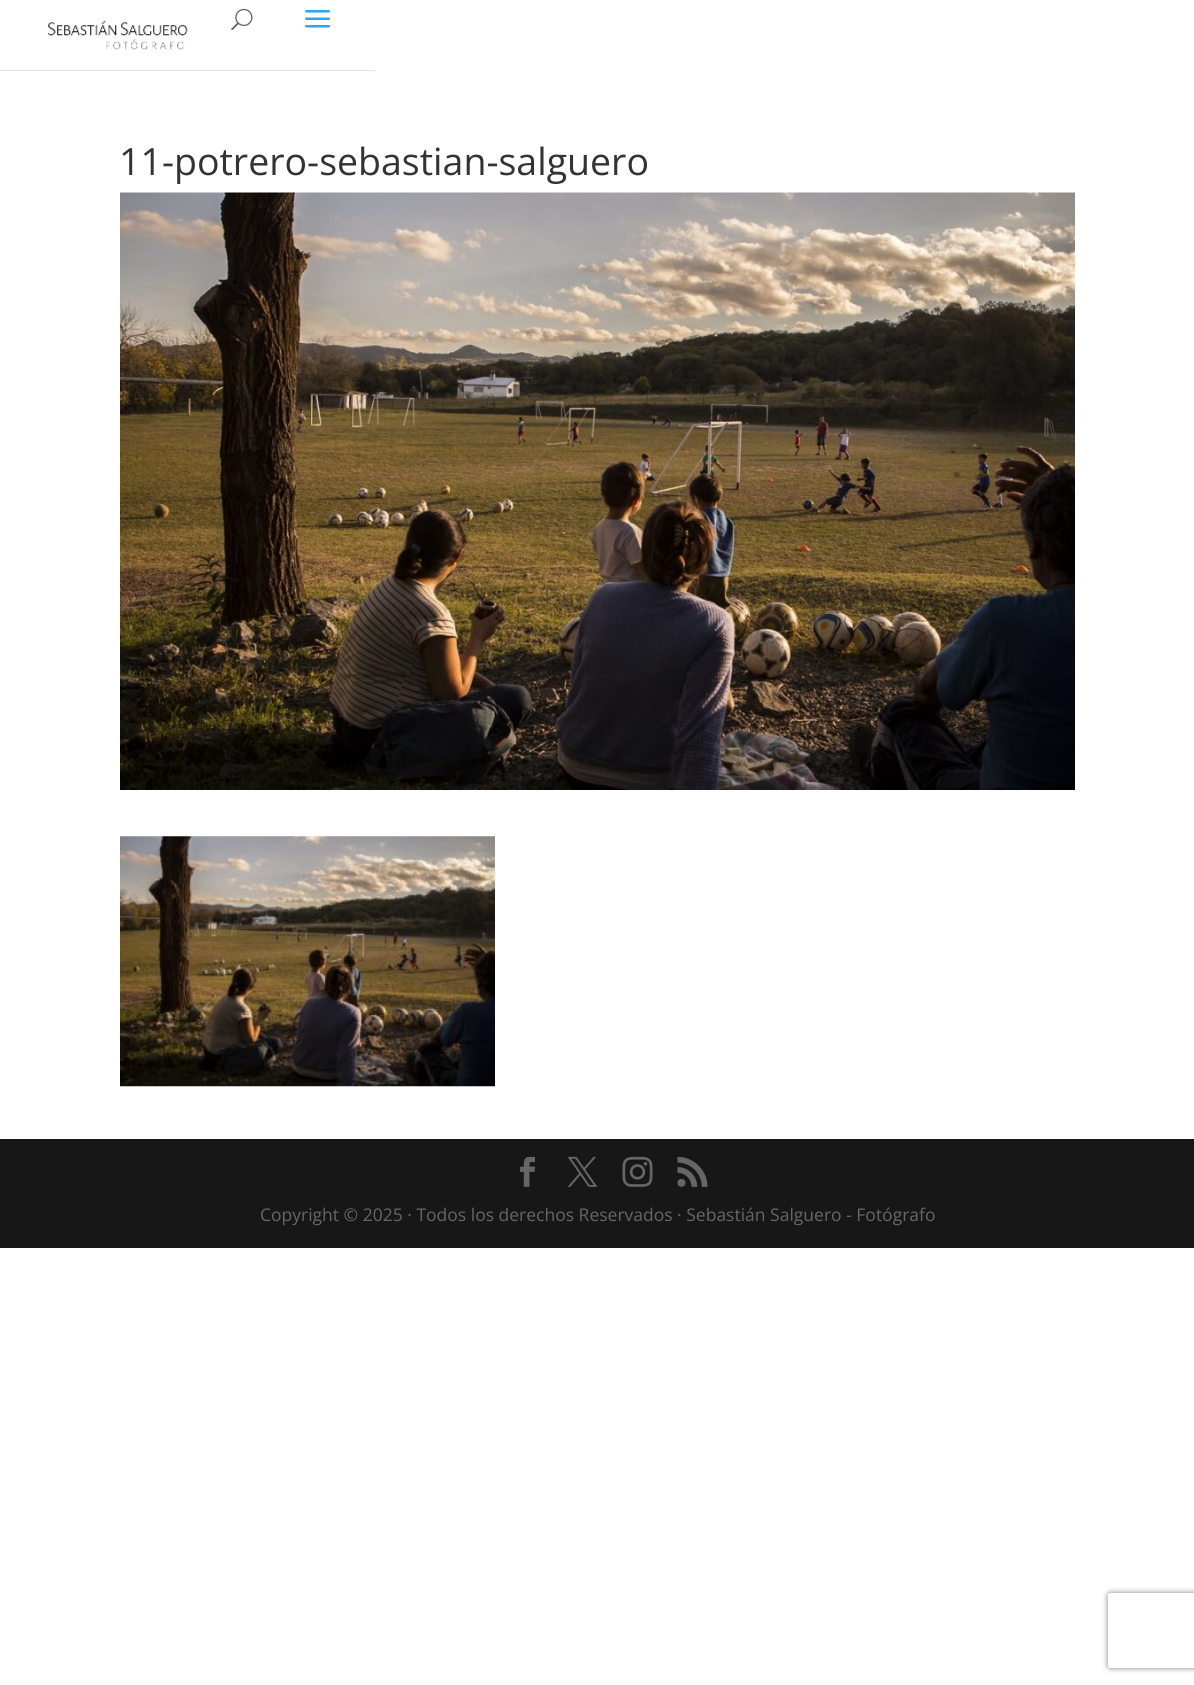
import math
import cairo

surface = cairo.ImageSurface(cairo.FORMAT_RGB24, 1194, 1685)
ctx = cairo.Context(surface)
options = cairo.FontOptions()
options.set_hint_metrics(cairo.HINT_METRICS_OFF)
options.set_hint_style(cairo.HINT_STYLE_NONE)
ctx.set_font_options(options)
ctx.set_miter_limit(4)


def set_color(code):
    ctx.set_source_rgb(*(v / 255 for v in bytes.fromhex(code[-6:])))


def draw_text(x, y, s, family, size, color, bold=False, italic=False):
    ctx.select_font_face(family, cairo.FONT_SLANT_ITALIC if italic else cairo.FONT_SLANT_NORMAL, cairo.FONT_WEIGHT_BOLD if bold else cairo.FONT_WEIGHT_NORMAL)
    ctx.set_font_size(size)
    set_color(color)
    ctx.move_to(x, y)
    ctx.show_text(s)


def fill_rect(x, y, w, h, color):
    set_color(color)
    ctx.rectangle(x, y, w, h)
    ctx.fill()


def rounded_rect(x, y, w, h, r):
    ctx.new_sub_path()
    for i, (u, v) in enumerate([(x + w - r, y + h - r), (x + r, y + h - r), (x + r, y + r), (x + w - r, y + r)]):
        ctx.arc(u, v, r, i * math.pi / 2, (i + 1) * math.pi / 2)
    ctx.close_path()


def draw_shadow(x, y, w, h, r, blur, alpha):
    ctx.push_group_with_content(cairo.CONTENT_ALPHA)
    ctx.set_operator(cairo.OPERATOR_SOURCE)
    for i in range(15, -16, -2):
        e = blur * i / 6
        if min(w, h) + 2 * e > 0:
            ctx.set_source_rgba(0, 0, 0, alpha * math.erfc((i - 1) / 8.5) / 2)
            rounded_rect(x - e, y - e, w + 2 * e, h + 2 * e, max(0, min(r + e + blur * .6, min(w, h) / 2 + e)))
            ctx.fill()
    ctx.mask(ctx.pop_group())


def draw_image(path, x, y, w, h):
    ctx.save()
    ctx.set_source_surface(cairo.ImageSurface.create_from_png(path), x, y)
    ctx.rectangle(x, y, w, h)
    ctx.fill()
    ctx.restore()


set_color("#ffffff")
ctx.paint()
fill_rect(0, 70, 375, 1, "#e6e6e6")
draw_image("assets/img1.png", 48, 20, 140, 30)
draw_image("assets/img2.png", 231, 8, 22, 23)
draw_image("assets/img3.png", 305, 10, 25, 18)
draw_text(119, 175, "11-potrero-sebastian-salguero", "Open Sans", 37.5, "#333333")
draw_image("assets/img4.png", 120, 192, 955, 598)
draw_image("assets/img5.png", 120, 836, 375, 251)
fill_rect(0, 1139, 1194, 109, "#171717")
draw_image("assets/img6.png", 520, 1156, 15, 31)
draw_image("assets/img7.png", 567, 1156, 31, 31)
draw_image("assets/img8.png", 622, 1156, 31, 31)
draw_image("assets/img9.png", 677, 1156, 31, 31)
draw_text(260, 1221, "Copyright © 2025 · Todos los derechos Reservados · Sebastián Salguero - Fotógrafo", "Open Sans", 17.5, "#666666")
ctx.save()
ctx.set_fill_rule(cairo.FILL_RULE_EVEN_ODD)
ctx.new_path()
ctx.move_to(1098, 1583)
ctx.line_to(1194, 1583)
ctx.line_to(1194, 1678)
ctx.line_to(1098, 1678)
ctx.close_path()
ctx.move_to(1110.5, 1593)
ctx.line_to(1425.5, 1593)
ctx.curve_to(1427, 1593, 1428, 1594, 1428, 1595.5)
ctx.line_to(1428, 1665.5)
ctx.curve_to(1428, 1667, 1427, 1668, 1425.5, 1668)
ctx.line_to(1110.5, 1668)
ctx.curve_to(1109, 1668, 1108, 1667, 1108, 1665.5)
ctx.line_to(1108, 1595.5)
ctx.curve_to(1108, 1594, 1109, 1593, 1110.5, 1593)
ctx.close_path()
ctx.clip()
set_color("#808080")
draw_shadow(1108, 1593, 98, 75, 2.5, 3, 1)
ctx.restore()
surface.write_to_png("output.png")
